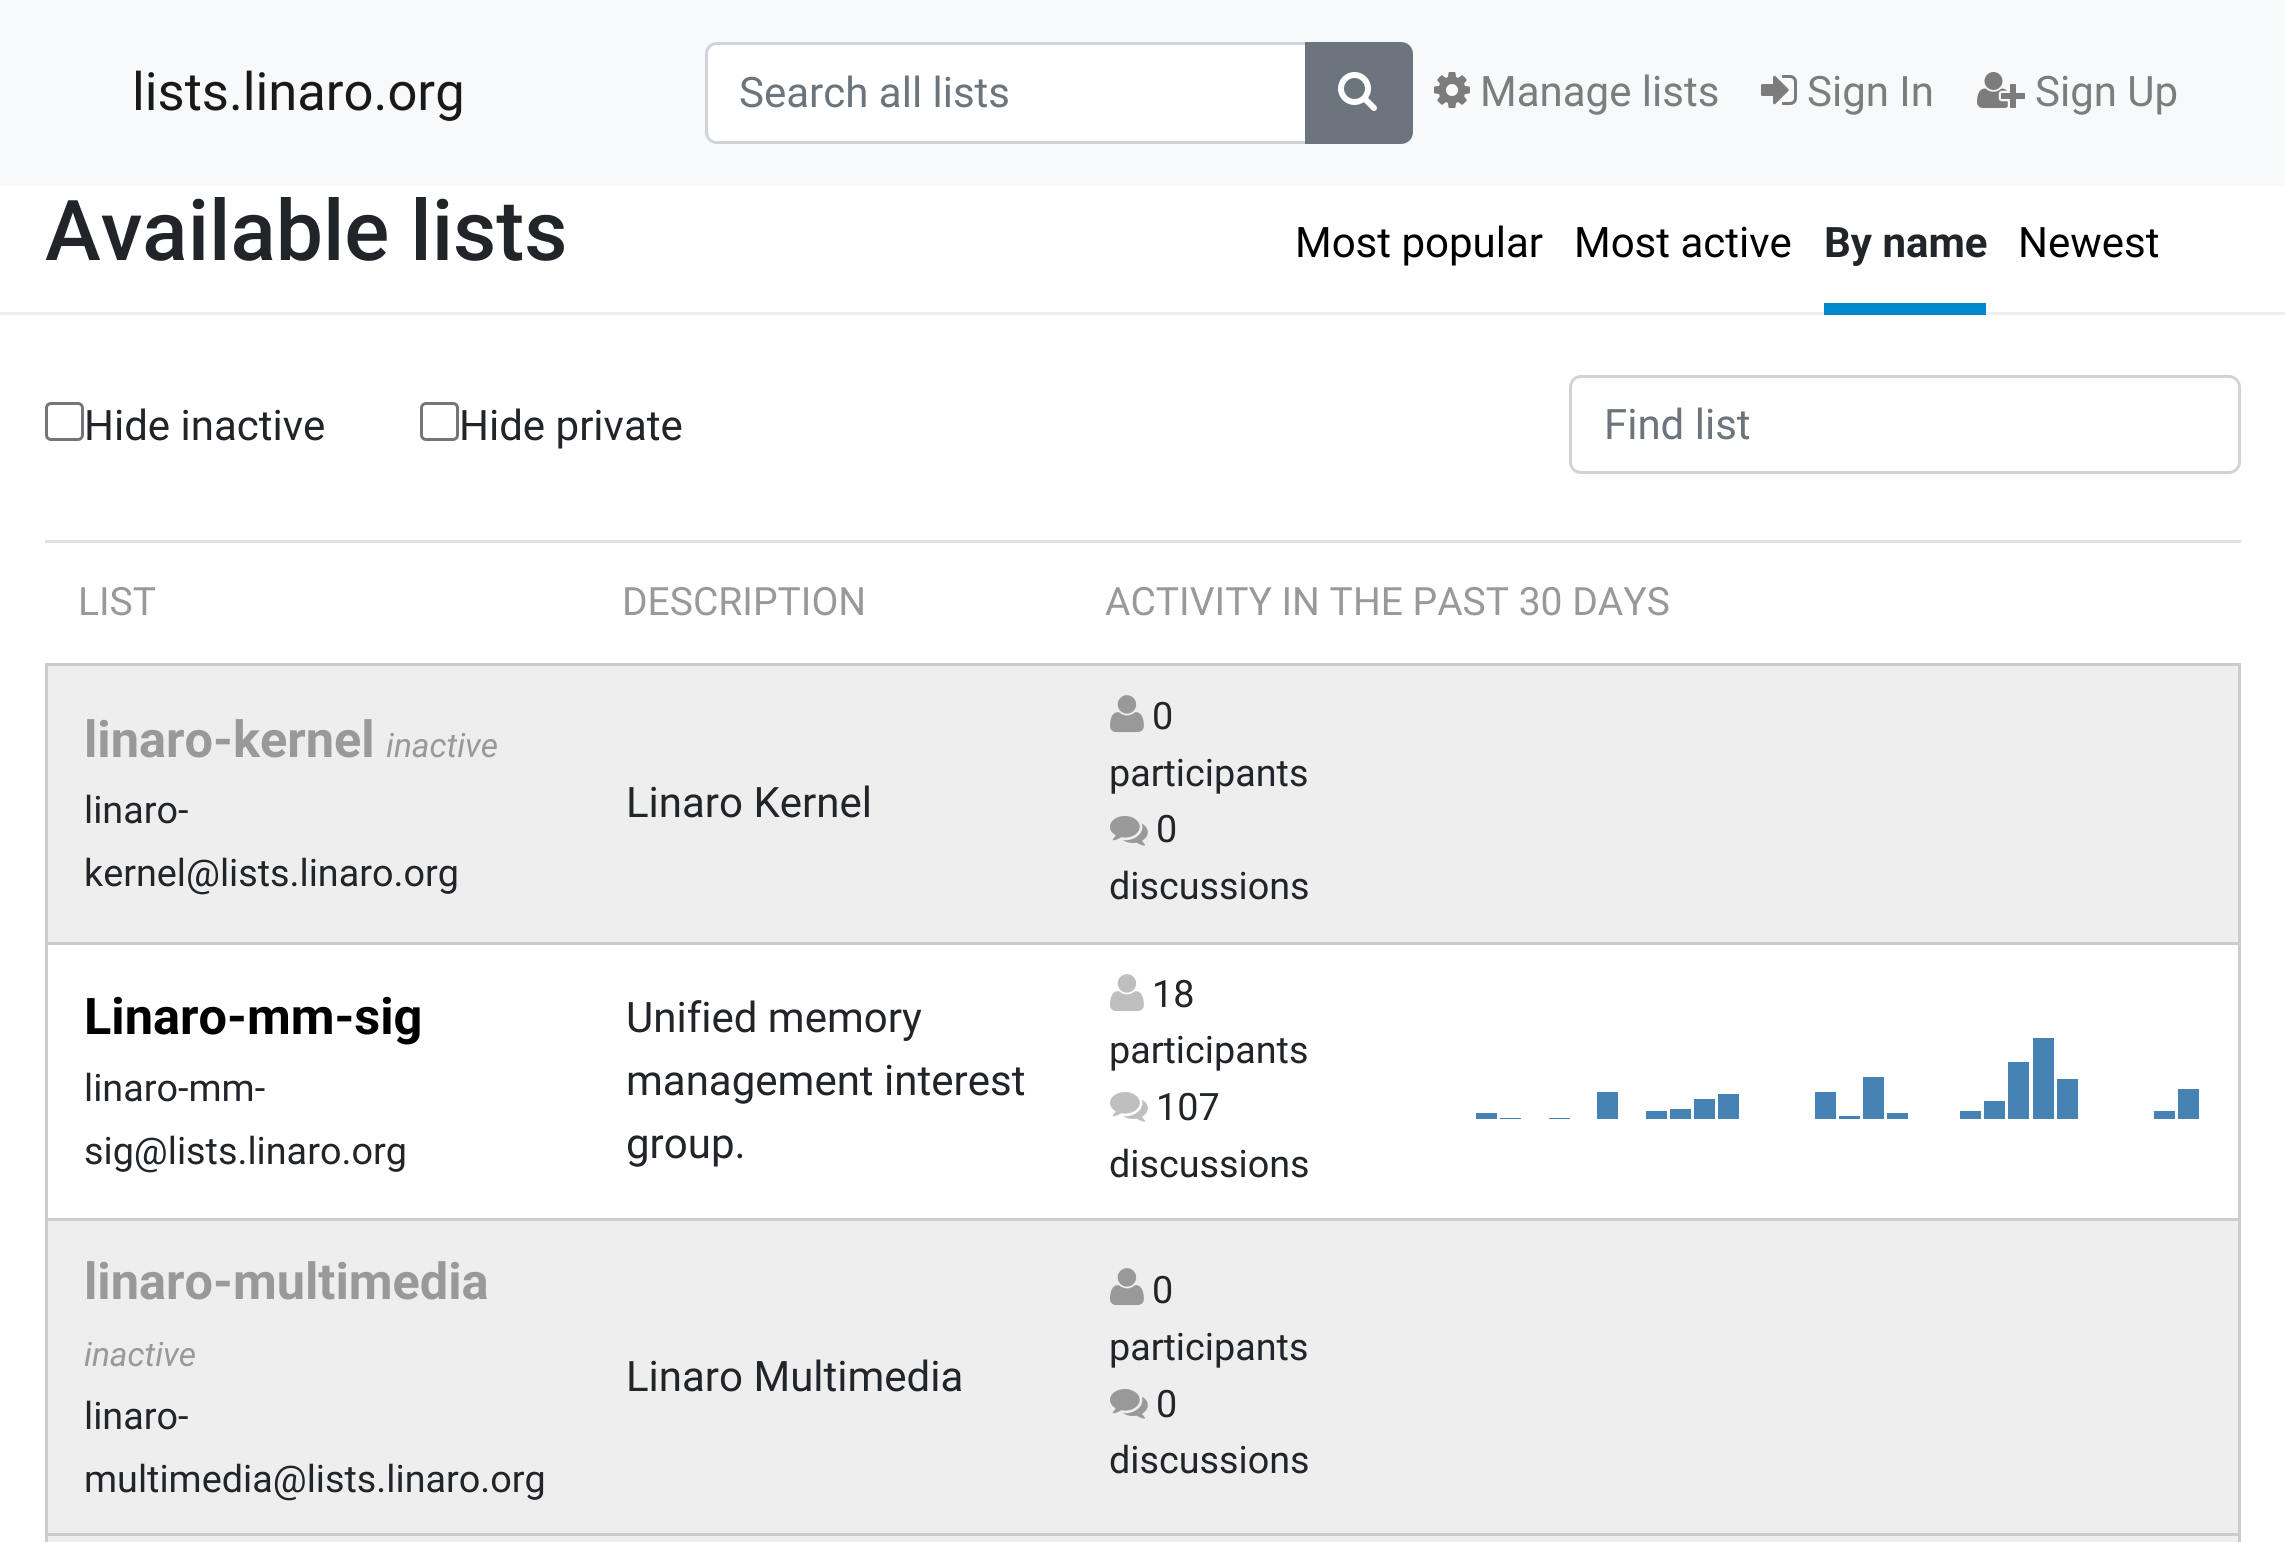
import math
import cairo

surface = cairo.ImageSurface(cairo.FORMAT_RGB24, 2285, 1542)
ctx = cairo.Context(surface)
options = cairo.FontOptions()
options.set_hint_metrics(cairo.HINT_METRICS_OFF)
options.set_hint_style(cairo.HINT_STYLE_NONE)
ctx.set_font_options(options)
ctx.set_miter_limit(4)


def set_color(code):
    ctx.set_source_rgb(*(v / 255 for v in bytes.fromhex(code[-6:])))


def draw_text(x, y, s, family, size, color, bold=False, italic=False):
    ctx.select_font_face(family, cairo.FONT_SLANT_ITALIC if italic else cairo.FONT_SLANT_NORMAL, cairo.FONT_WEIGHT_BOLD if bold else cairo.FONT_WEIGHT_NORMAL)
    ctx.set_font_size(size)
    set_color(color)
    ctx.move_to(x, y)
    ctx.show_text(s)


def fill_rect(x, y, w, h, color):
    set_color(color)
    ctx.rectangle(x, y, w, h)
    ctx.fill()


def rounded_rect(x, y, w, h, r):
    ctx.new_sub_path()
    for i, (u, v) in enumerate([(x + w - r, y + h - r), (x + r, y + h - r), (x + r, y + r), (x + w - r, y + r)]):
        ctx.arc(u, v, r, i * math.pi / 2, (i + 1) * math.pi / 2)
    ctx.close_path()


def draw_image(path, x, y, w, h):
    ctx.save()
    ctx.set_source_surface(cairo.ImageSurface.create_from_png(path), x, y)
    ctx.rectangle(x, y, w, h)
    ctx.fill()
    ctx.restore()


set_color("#ffffff")
ctx.paint()
fill_rect(0, 0, 2285, 186, "#f8f9fa")
draw_text(132, 110, "lists.linaro.org", "Roboto", 52.5, "#191919")
set_color("#ffffff")
ctx.new_path()
ctx.move_to(716, 45)
ctx.line_to(1305, 45)
ctx.line_to(1305, 141)
ctx.line_to(716, 141)
ctx.curve_to(711.5, 141, 708, 137.5, 708, 133)
ctx.line_to(708, 53)
ctx.curve_to(708, 48.5, 711.5, 45, 716, 45)
ctx.close_path()
ctx.fill()
ctx.new_path()
ctx.move_to(717, 43.5)
ctx.line_to(1306.5, 43.5)
ctx.line_to(1306.5, 142.5)
ctx.line_to(717, 142.5)
ctx.curve_to(711, 142.5, 706.5, 138, 706.5, 132)
ctx.line_to(706.5, 54)
ctx.curve_to(706.5, 48, 711, 43.5, 717, 43.5)
ctx.close_path()
set_color("#ced4da")
ctx.set_line_width(3)
ctx.stroke()
draw_text(739, 107, "Search all lists", "Roboto", 42, "#6c757d")
ctx.new_path()
ctx.move_to(1306.5, 43.5)
ctx.line_to(1401, 43.5)
ctx.curve_to(1407, 43.5, 1411.5, 48, 1411.5, 54)
ctx.line_to(1411.5, 132)
ctx.curve_to(1411.5, 138, 1407, 142.5, 1401, 142.5)
ctx.line_to(1306.5, 142.5)
ctx.close_path()
ctx.fill_preserve()
ctx.stroke()
draw_image("assets/img1.png", 1338, 72, 39, 39)
draw_image("assets/img2.png", 1434, 72, 36, 36)
draw_text(1480, 106, "Manage lists", "Roboto", 42, "#7c7d7d")
draw_image("assets/img3.png", 1761, 75, 36, 30)
draw_text(1807, 106, "Sign In", "Roboto", 42, "#7c7d7d")
draw_image("assets/img4.png", 1977, 72, 48, 36)
draw_text(2035, 106, "Sign Up", "Roboto", 42, "#7c7d7d")
fill_rect(0, 312, 2285, 3, "#eeeeee")
draw_text(45, 260, "Available lists", "Roboto Medium", 84, "#212529")
draw_text(1295, 257, "Most popular", "Roboto", 42, "#000000")
draw_text(1574, 257, "Most active", "Roboto", 42, "#000000")
draw_text(1824, 257, "By name", "Roboto", 42, "#212529", bold=True)
fill_rect(1824, 303, 162, 12, "#0088cc")
draw_text(2018, 257, "Newest", "Roboto", 42, "#000000")
rounded_rect(46.5, 403.5, 36, 36, 4.5)
set_color("#767676")
ctx.stroke()
draw_text(84, 440, "Hide inactive", "Roboto", 42, "#212529")
rounded_rect(421.5, 403.5, 36, 36, 4.5)
set_color("#767676")
ctx.stroke()
draw_text(459, 440, "Hide private", "Roboto", 42, "#212529")
rounded_rect(1570.5, 376.5, 669, 96, 10.5)
set_color("#ced4da")
ctx.stroke()
draw_text(1604, 439, "Find list", "Roboto", 42, "#6c757d")
draw_text(78, 615, "LIST", "Roboto", 39, "#999999")
draw_text(622, 615, "DESCRIPTION", "Roboto", 39, "#999999")
fill_rect(45, 540, 2196, 3, "#dee2e6")
draw_text(1105, 615, "ACTIVITY IN THE PAST 30 DAYS", "Roboto", 39, "#999999")
fill_rect(48, 666, 2190, 276, "#eeeeee")
fill_rect(45, 663, 2196, 3, "#cccccc")
fill_rect(45, 942, 2196, 3, "#cccccc")
fill_rect(45, 1218, 2196, 3, "#cccccc")
fill_rect(45, 1533, 2196, 3, "#cccccc")
fill_rect(48, 1536, 2193, 6, "#eeeeee")
fill_rect(2238, 1533, 3, 9, "#cccccc")
fill_rect(2238, 1218, 3, 318, "#cccccc")
fill_rect(2238, 942, 3, 279, "#cccccc")
fill_rect(2238, 663, 3, 282, "#cccccc")
fill_rect(45, 1533, 3, 9, "#cccccc")
fill_rect(45, 1218, 3, 318, "#cccccc")
fill_rect(45, 942, 3, 279, "#cccccc")
fill_rect(45, 663, 3, 282, "#cccccc")
draw_text(84, 757, "linaro-kernel", "Roboto", 50.5, "#999999", bold=True)
draw_text(386, 757, "inactive", "Roboto", 33.5, "#999999", italic=True)
draw_text(84, 823, "linaro-", "Roboto", 37.75, "#212529")
draw_text(84, 886, "kernel@lists.linaro.org", "Roboto", 37.75, "#212529")
draw_text(626, 817, "Linaro Kernel", "Roboto", 42, "#212529")
draw_image("assets/img5.png", 1110, 695, 34, 38)
draw_text(1152, 729, "0", "Roboto", 37.75, "#212529")
draw_text(1109, 786, "participants", "Roboto", 37.75, "#212529")
draw_image("assets/img6.png", 1110, 816, 38, 30)
draw_text(1156, 842, "0", "Roboto", 37.75, "#212529")
draw_text(1109, 899, "discussions", "Roboto", 37.75, "#212529")
draw_image("assets/img7.png", 1476, 1038, 723, 81)
draw_text(84, 1034, "Linaro-mm-sig", "Roboto", 50.5, "#000000", bold=True)
draw_text(84, 1101, "linaro-mm-", "Roboto", 37.75, "#212529")
draw_text(84, 1164, "sig@lists.linaro.org", "Roboto", 37.75, "#212529")
draw_text(626, 1032, "Unified memory", "Roboto", 42, "#212529")
draw_text(626, 1095, "management interest", "Roboto", 42, "#212529")
draw_text(626, 1158, "group.", "Roboto", 42, "#212529")
draw_image("assets/img8.png", 1110, 974, 34, 38)
draw_text(1152, 1007, "18", "Roboto", 37.75, "#212529")
draw_text(1109, 1063, "participants", "Roboto", 37.75, "#212529")
draw_image("assets/img9.png", 1110, 1092, 38, 30)
draw_text(1156, 1120, "107", "Roboto", 37.75, "#212529")
draw_text(1109, 1177, "discussions", "Roboto", 37.75, "#212529")
fill_rect(48, 1221, 2190, 312, "#eeeeee")
draw_text(84, 1299, "linaro-multimedia", "Roboto", 50.5, "#999999", bold=True)
draw_text(84, 1366, "inactive", "Roboto", 33.5, "#999999", italic=True)
draw_text(84, 1429, "linaro-", "Roboto", 37.75, "#212529")
draw_text(84, 1492, "multimedia@lists.linaro.org", "Roboto", 37.75, "#212529")
draw_text(626, 1391, "Linaro Multimedia", "Roboto", 42, "#212529")
draw_image("assets/img5.png", 1110, 1268, 34, 38)
draw_text(1152, 1303, "0", "Roboto", 37.75, "#212529")
draw_text(1109, 1360, "participants", "Roboto", 37.75, "#212529")
draw_image("assets/img6.png", 1110, 1389, 38, 30)
draw_text(1156, 1417, "0", "Roboto", 37.75, "#212529")
draw_text(1109, 1473, "discussions", "Roboto", 37.75, "#212529")
surface.write_to_png("output.png")
